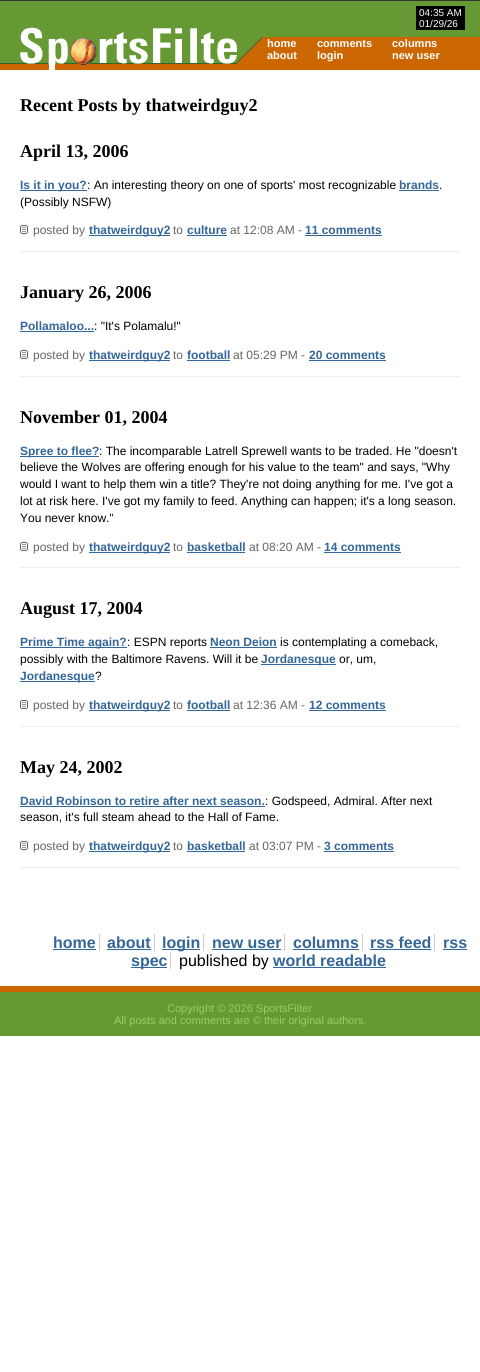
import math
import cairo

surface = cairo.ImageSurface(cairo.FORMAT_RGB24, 480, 1372)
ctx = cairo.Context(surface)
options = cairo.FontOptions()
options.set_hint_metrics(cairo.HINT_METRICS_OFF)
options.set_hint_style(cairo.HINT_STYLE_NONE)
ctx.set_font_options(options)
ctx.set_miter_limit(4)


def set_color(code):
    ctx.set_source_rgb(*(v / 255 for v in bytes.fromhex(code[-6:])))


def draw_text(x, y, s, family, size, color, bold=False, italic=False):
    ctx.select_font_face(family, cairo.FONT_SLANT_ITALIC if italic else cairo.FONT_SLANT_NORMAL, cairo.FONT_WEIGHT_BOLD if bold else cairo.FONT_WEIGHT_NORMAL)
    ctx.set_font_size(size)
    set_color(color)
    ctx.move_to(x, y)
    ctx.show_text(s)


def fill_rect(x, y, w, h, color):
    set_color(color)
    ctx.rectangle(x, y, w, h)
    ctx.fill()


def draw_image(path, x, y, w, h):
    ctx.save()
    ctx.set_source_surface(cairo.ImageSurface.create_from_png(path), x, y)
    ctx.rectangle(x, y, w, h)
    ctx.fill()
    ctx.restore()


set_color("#ffffff")
ctx.paint()
draw_image("assets/img1.png", 0, 0, 480, 70)
fill_rect(416, 6, 49, 24, "#000000")
draw_text(419, 16, "04:35 AM", "Liberation Sans", 10, "#ffffff")
draw_text(419, 27, "01/29/26", "Liberation Sans", 10, "#ffffff")
draw_image("assets/img2.png", 20, 27, 217, 43)
fill_rect(237, 37, 243, 27, "#cc6600")
draw_image("assets/img3.png", 237, 37, 26, 26)
draw_text(267, 47, "home", "Liberation Sans", 11, "#ffffff", bold=True)
draw_text(317, 47, "comments", "Liberation Sans", 11, "#ffffff", bold=True)
draw_text(392, 47, "columns", "Liberation Sans", 11, "#ffffff", bold=True)
draw_text(267, 59, "about", "Liberation Sans", 11, "#ffffff", bold=True)
draw_text(317, 59, "login", "Liberation Sans", 11, "#ffffff", bold=True)
draw_text(392, 59, "new user", "Liberation Sans", 11, "#ffffff", bold=True)
draw_text(20, 111, "Recent Posts by thatweirdguy2", "Liberation Serif", 18, "#000000", bold=True)
draw_text(20, 157, "April 13, 2006", "Liberation Serif", 18, "#000000", bold=True)
fill_rect(20, 251, 440, 1, "#eeeeee")
fill_rect(20, 190, 67, 1, "#336699")
draw_text(20, 189, "Is it in you?", "Liberation Sans", 12, "#336699", bold=True)
draw_text(87, 189, ": An interesting theory on one of sports' most recognizable", "Liberation Sans", 12, "#000000")
draw_text(399, 189, "brands", "Liberation Sans", 12, "#336699", bold=True)
fill_rect(399, 190, 40, 1, "#336699")
draw_text(439, 189, ".", "Liberation Sans", 12, "#000000")
draw_text(20, 206, "(Possibly NSFW)", "Liberation Sans", 12, "#000000")
draw_image("assets/img4.png", 20, 225, 8, 9)
draw_text(33, 234, "posted by", "Liberation Sans", 12, "#666666")
fill_rect(89, 235, 81, 1, "#336699")
draw_text(89, 234, "thatweirdguy2", "Liberation Sans", 12, "#336699", bold=True)
draw_text(173, 234, "to", "Liberation Sans", 12, "#666666")
draw_text(187, 234, "culture", "Liberation Sans", 12, "#336699", bold=True)
fill_rect(187, 235, 40, 1, "#336699")
draw_text(230, 234, "at 12:08 AM -", "Liberation Sans", 12, "#666666")
draw_text(305, 234, "11 comments", "Liberation Sans", 12, "#336699", bold=True)
fill_rect(305, 235, 77, 1, "#336699")
draw_text(20, 298, "January 26, 2006", "Liberation Serif", 18, "#000000", bold=True)
fill_rect(20, 376, 440, 1, "#eeeeee")
draw_text(20, 330, "Pollamaloo...", "Liberation Sans", 12, "#336699", bold=True)
fill_rect(20, 331, 74, 1, "#336699")
draw_text(94, 330, ": \"It's Polamalu!\"", "Liberation Sans", 12, "#000000")
draw_image("assets/img4.png", 20, 350, 8, 9)
draw_text(33, 359, "posted by", "Liberation Sans", 12, "#666666")
fill_rect(89, 360, 81, 1, "#336699")
draw_text(89, 359, "thatweirdguy2", "Liberation Sans", 12, "#336699", bold=True)
draw_text(173, 359, "to", "Liberation Sans", 12, "#666666")
draw_text(187, 359, "football", "Liberation Sans", 12, "#336699", bold=True)
fill_rect(187, 360, 43, 1, "#336699")
draw_text(233, 359, "at 05:29 PM -", "Liberation Sans", 12, "#666666")
draw_text(309, 359, "20 comments", "Liberation Sans", 12, "#336699", bold=True)
fill_rect(309, 360, 77, 1, "#336699")
draw_text(20, 423, "November 01, 2004", "Liberation Serif", 18, "#000000", bold=True)
fill_rect(20, 567, 440, 1, "#eeeeee")
fill_rect(20, 456, 79, 1, "#336699")
draw_text(20, 455, "Spree to flee?", "Liberation Sans", 12, "#336699", bold=True)
draw_text(99, 455, ": The incomparable Latrell Sprewell wants to be traded. He \"doesn't", "Liberation Sans", 12, "#000000")
draw_text(20, 471, "believe the Wolves are offering enough for his value to the team\" and says, \"Why", "Liberation Sans", 12, "#000000")
draw_text(20, 488, "would I want to help them win a title? They're not doing anything for me. I've got a", "Liberation Sans", 12, "#000000")
draw_text(20, 505, "lot at risk here. I've got my family to feed. Anything can happen; it's a long season.", "Liberation Sans", 12, "#000000")
draw_text(20, 522, "You never know.\"", "Liberation Sans", 12, "#000000")
draw_image("assets/img4.png", 20, 542, 8, 9)
draw_text(33, 551, "posted by", "Liberation Sans", 12, "#666666")
fill_rect(89, 552, 81, 1, "#336699")
draw_text(89, 551, "thatweirdguy2", "Liberation Sans", 12, "#336699", bold=True)
draw_text(173, 551, "to", "Liberation Sans", 12, "#666666")
draw_text(187, 551, "basketball", "Liberation Sans", 12, "#336699", bold=True)
fill_rect(187, 552, 58, 1, "#336699")
draw_text(249, 551, "at 08:20 AM -", "Liberation Sans", 12, "#666666")
draw_text(324, 551, "14 comments", "Liberation Sans", 12, "#336699", bold=True)
fill_rect(324, 552, 77, 1, "#336699")
draw_text(20, 614, "August 17, 2004", "Liberation Serif", 18, "#000000", bold=True)
fill_rect(20, 726, 440, 1, "#eeeeee")
fill_rect(20, 647, 107, 1, "#336699")
draw_text(20, 646, "Prime Time again?", "Liberation Sans", 12, "#336699", bold=True)
draw_text(127, 646, ": ESPN reports", "Liberation Sans", 12, "#000000")
draw_text(210, 646, "Neon Deion", "Liberation Sans", 12, "#336699", bold=True)
fill_rect(210, 647, 67, 1, "#336699")
draw_text(280, 646, "is contemplating a comeback,", "Liberation Sans", 12, "#000000")
draw_text(20, 663, "possibly with the Baltimore Ravens. Will it be", "Liberation Sans", 12, "#000000")
fill_rect(261, 664, 75, 1, "#336699")
draw_text(261, 663, "Jordanesque", "Liberation Sans", 12, "#336699", bold=True)
draw_text(339, 663, "or, um,", "Liberation Sans", 12, "#000000")
fill_rect(20, 681, 75, 1, "#336699")
draw_text(20, 680, "Jordanesque", "Liberation Sans", 12, "#336699", bold=True)
draw_text(95, 680, "?", "Liberation Sans", 12, "#000000")
draw_image("assets/img4.png", 20, 700, 8, 9)
draw_text(33, 709, "posted by", "Liberation Sans", 12, "#666666")
fill_rect(89, 710, 81, 1, "#336699")
draw_text(89, 709, "thatweirdguy2", "Liberation Sans", 12, "#336699", bold=True)
draw_text(173, 709, "to", "Liberation Sans", 12, "#666666")
draw_text(187, 709, "football", "Liberation Sans", 12, "#336699", bold=True)
fill_rect(187, 710, 43, 1, "#336699")
draw_text(233, 709, "at 12:36 AM -", "Liberation Sans", 12, "#666666")
draw_text(309, 709, "12 comments", "Liberation Sans", 12, "#336699", bold=True)
fill_rect(309, 710, 77, 1, "#336699")
draw_text(20, 773, "May 24, 2002", "Liberation Serif", 18, "#000000", bold=True)
fill_rect(20, 867, 440, 1, "#eeeeee")
draw_text(20, 805, "David Robinson to retire after next season.", "Liberation Sans", 12, "#336699", bold=True)
fill_rect(20, 806, 245, 1, "#336699")
draw_text(265, 805, ": Godspeed, Admiral. After next", "Liberation Sans", 12, "#000000")
draw_text(20, 821, "season, it's full steam ahead to the Hall of Fame.", "Liberation Sans", 12, "#000000")
draw_image("assets/img4.png", 20, 841, 8, 9)
draw_text(33, 850, "posted by", "Liberation Sans", 12, "#666666")
fill_rect(89, 851, 81, 1, "#336699")
draw_text(89, 850, "thatweirdguy2", "Liberation Sans", 12, "#336699", bold=True)
draw_text(173, 850, "to", "Liberation Sans", 12, "#666666")
draw_text(187, 850, "basketball", "Liberation Sans", 12, "#336699", bold=True)
fill_rect(187, 851, 58, 1, "#336699")
draw_text(249, 850, "at 03:07 PM -", "Liberation Sans", 12, "#666666")
draw_text(324, 850, "3 comments", "Liberation Sans", 12, "#336699", bold=True)
fill_rect(324, 851, 70, 1, "#336699")
draw_text(53, 948, "home", "Liberation Sans", 16, "#336699", bold=True)
fill_rect(99, 934, 1, 17, "#cccccc")
fill_rect(53, 949, 43, 1, "#336699")
draw_text(107, 948, "about", "Liberation Sans", 16, "#336699", bold=True)
fill_rect(154, 934, 1, 17, "#cccccc")
fill_rect(107, 949, 44, 1, "#336699")
fill_rect(162, 949, 38, 1, "#336699")
draw_text(162, 948, "login", "Liberation Sans", 16, "#336699", bold=True)
fill_rect(203, 934, 1, 17, "#cccccc")
draw_text(212, 948, "new user", "Liberation Sans", 16, "#336699", bold=True)
fill_rect(284, 934, 1, 17, "#cccccc")
fill_rect(212, 949, 69, 1, "#336699")
draw_text(293, 948, "columns", "Liberation Sans", 16, "#336699", bold=True)
fill_rect(362, 934, 1, 17, "#cccccc")
fill_rect(293, 949, 66, 1, "#336699")
draw_text(370, 948, "rss feed", "Liberation Sans", 16, "#336699", bold=True)
fill_rect(434, 934, 1, 17, "#cccccc")
fill_rect(370, 949, 61, 1, "#336699")
draw_text(443, 948, "rss", "Liberation Sans", 16, "#336699", bold=True)
fill_rect(443, 949, 24, 1, "#336699")
fill_rect(131, 967, 36, 1, "#336699")
draw_text(131, 966, "spec", "Liberation Sans", 16, "#336699", bold=True)
fill_rect(170, 952, 1, 17, "#cccccc")
draw_text(179, 966, "published by", "Liberation Sans", 16, "#000000")
draw_text(273, 966, "world readable", "Liberation Sans", 16, "#336699", bold=True)
fill_rect(273, 967, 113, 1, "#336699")
fill_rect(0, 992, 480, 44, "#669933")
fill_rect(0, 986, 480, 6, "#cc6600")
draw_text(167, 1012, "Copyright © 2026 SportsFilter", "Liberation Sans", 11, "#99cc66")
draw_text(114, 1024, "All posts and comments are © their original authors.", "Liberation Sans", 11, "#99cc66")
surface.write_to_png("output.png")
